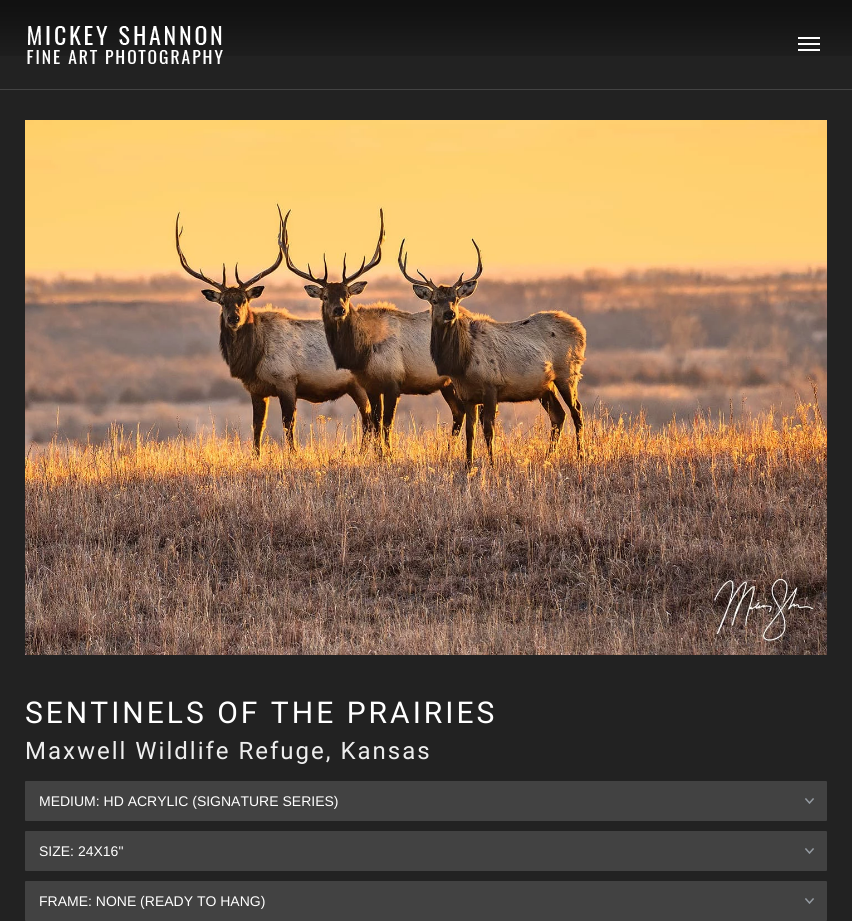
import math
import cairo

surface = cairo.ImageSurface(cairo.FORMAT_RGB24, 852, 921)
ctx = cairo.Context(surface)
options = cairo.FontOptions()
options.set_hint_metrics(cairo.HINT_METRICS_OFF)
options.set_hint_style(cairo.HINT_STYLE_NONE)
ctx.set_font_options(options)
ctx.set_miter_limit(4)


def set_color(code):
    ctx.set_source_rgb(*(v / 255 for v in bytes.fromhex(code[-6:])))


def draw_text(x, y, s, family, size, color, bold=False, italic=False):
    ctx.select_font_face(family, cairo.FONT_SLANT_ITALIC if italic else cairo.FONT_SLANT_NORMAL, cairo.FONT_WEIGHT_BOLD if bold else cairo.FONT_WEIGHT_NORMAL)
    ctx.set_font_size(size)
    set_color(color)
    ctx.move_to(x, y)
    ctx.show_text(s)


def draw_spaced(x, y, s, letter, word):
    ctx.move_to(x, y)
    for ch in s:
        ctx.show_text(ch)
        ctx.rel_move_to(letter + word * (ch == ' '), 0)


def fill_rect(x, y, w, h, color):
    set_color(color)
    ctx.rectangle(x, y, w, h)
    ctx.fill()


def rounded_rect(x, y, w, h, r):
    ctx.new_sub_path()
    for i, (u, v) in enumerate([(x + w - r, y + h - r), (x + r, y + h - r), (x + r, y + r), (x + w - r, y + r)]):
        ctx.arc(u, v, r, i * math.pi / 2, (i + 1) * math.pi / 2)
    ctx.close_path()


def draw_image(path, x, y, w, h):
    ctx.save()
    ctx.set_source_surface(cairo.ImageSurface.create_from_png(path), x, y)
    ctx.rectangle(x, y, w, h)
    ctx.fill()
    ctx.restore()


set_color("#222222")
ctx.paint()
draw_image("assets/img1.png", 0, 0, 852, 56)
fill_rect(0, 89, 852, 1, "#434343")
draw_image("assets/img2.png", 27, 26, 196, 38)
fill_rect(798, 43, 22, 2, "#ffffff")
fill_rect(798, 37, 22, 2, "#ffffff")
fill_rect(798, 49, 22, 2, "#ffffff")
draw_image("assets/img3.png", 25, 120, 802, 535)
ctx.select_font_face("Roboto")
ctx.set_font_size(30)
draw_spaced(25, 723, "SENTINELS OF THE PRAIRIES", 3, 0)
ctx.set_font_size(24)
set_color("#eeeeee")
draw_spaced(25, 759, "Maxwell Wildlife Refuge, Kansas", 2, 0)
set_color("#424242")
rounded_rect(25, 781, 802, 40, 1)
ctx.fill()
draw_image("assets/img4.png", 805, 798, 9, 6)
draw_text(39, 806, "MEDIUM: HD ACRYLIC (SIGNATURE SERIES)", "Liberation Sans", 14, "#ffffff")
set_color("#424242")
rounded_rect(25, 831, 802, 40, 1)
ctx.fill()
draw_image("assets/img4.png", 805, 848, 9, 6)
draw_text(39, 856, "SIZE: 24X16\"", "Liberation Sans", 14, "#ffffff")
set_color("#424242")
rounded_rect(25, 881, 802, 40, 1)
ctx.fill()
draw_image("assets/img4.png", 805, 898, 9, 6)
draw_text(39, 906, "FRAME: NONE (READY TO HANG)", "Liberation Sans", 14, "#ffffff")
surface.write_to_png("output.png")
